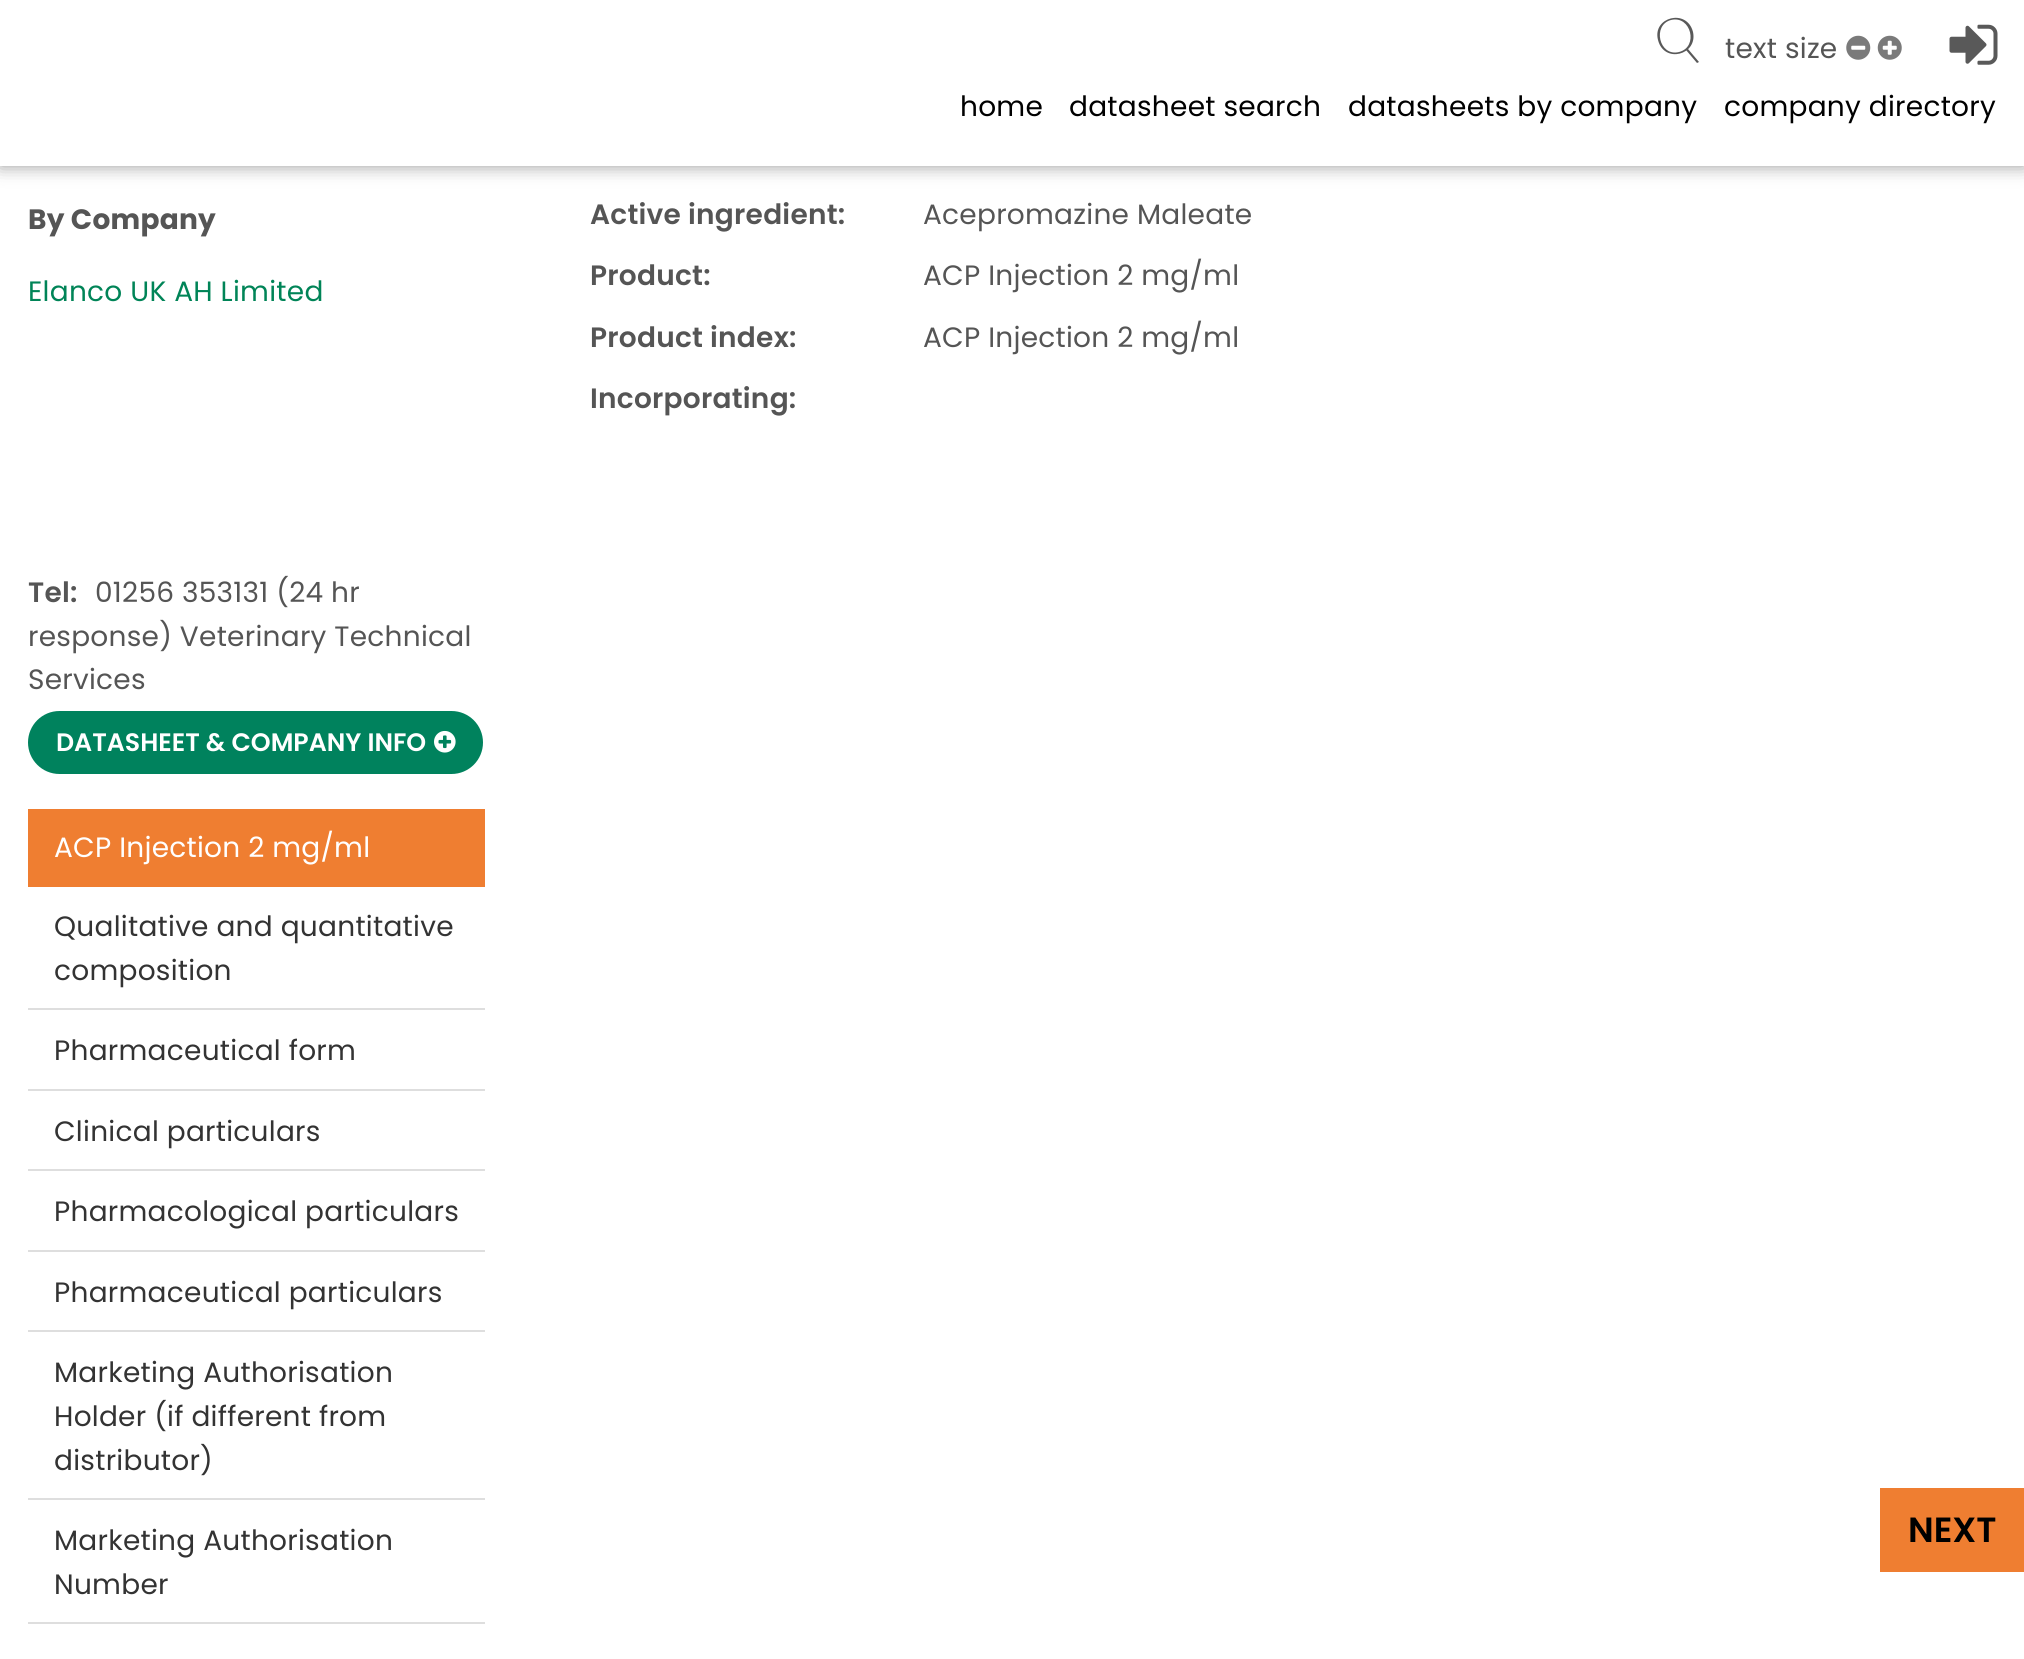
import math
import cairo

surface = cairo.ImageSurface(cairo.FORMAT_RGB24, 2024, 1659)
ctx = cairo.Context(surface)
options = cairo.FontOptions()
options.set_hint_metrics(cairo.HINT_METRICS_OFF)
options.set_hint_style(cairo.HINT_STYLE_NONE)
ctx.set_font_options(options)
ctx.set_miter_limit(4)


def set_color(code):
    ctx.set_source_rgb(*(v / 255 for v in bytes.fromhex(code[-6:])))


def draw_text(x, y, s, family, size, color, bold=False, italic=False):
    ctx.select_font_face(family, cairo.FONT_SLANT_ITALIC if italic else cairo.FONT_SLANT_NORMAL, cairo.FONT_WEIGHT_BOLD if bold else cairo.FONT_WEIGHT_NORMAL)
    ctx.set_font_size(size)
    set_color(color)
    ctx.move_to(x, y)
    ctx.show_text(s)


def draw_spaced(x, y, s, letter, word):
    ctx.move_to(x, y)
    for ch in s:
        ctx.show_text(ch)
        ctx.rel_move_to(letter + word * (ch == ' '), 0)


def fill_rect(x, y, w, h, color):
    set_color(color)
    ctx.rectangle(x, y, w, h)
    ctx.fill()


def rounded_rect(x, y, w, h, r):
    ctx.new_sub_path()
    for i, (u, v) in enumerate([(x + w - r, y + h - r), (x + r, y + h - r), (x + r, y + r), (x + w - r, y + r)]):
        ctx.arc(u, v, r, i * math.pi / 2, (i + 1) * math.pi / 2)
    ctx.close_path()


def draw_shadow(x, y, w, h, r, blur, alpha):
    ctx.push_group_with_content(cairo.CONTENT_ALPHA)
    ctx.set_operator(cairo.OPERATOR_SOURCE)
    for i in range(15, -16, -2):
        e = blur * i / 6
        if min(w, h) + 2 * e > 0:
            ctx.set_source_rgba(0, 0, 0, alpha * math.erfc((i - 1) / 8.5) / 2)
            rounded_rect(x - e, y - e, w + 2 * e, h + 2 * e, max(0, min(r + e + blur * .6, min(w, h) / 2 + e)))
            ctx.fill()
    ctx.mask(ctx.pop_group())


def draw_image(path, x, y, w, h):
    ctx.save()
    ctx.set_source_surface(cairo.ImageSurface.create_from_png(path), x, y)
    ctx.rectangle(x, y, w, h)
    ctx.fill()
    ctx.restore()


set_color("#ffffff")
ctx.paint()
set_color("#000000")
draw_shadow(0, 0, 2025, 166, 0, 9, 0.4)
fill_rect(0, 0, 2024, 166, "#ffffff")
set_color("#595959")
ctx.new_path()
ctx.move_to(1671, 20)
ctx.curve_to(1652, 25, 1659, 57, 1679, 52)
ctx.curve_to(1699, 47, 1691, 15, 1671, 20)
ctx.close_path()
ctx.move_to(1658, 40)
ctx.curve_to(1652, 17, 1687, 8, 1693, 32)
ctx.curve_to(1698, 55, 1664, 64, 1658, 40)
ctx.close_path()
ctx.move_to(1686, 50)
ctx.line_to(1688, 49)
ctx.line_to(1699, 62)
ctx.line_to(1697, 63)
ctx.close_path()
ctx.fill()
ctx.select_font_face("Poppins")
ctx.set_font_size(28)
set_color("#555555")
draw_spaced(1725, 58, "text size", 0.25, 0)
draw_image("assets/img1.png", 1846, 35, 25, 25)
draw_image("assets/img2.png", 1877, 35, 25, 25)
draw_image("assets/img3.png", 1949, 24, 49, 41)
set_color("#000000")
draw_spaced(960, 116, "home", 0.25, 0)
draw_spaced(1069, 116, "datasheet search", 0.25, 0)
draw_spaced(1348, 116, "datasheets by company", 0.25, 0)
draw_spaced(1724, 116, "company directory", 0.25, 0)
ctx.select_font_face("Poppins", cairo.FONT_SLANT_NORMAL, cairo.FONT_WEIGHT_BOLD)
set_color("#555555")
draw_spaced(28, 229, "By Company", 0.25, 0)
ctx.select_font_face("Poppins")
set_color("#008457")
draw_spaced(28, 301, "Elanco UK AH Limited", 0.25, 0)
ctx.select_font_face("Poppins SemiBold")
set_color("#555555")
draw_spaced(28, 602, "Tel:", 0.25, 0)
ctx.select_font_face("Poppins")
draw_spaced(95, 602, "01256 353131 (24 hr", 0.25, 0)
draw_spaced(28, 646, "response) Veterinary Technical", 0.25, 0)
draw_spaced(28, 689, "Services", 0.25, 0)
set_color("#00825d")
rounded_rect(28, 711, 455, 63, 31.5)
ctx.fill()
draw_text(56, 751, "DATASHEET & COMPANY INFO", "Poppins SemiBold", 25.25, "#ffffff")
draw_image("assets/img4.png", 434, 730, 22, 23)
fill_rect(28, 809, 457, 78, "#ef7e31")
ctx.select_font_face("Poppins")
ctx.set_font_size(28)
set_color("#ffffff")
draw_spaced(54, 857, "ACP Injection 2 mg/ml", 0.25, 0)
fill_rect(28, 1008, 457, 2, "#dedede")
set_color("#333333")
draw_spaced(54, 936, "Qualitative and quantitative", 0.25, 0)
draw_spaced(54, 980, "composition", 0.25, 0)
fill_rect(28, 1089, 457, 2, "#dedede")
set_color("#333333")
draw_spaced(54, 1060, "Pharmaceutical form", 0.25, 0)
fill_rect(28, 1169, 457, 2, "#dedede")
set_color("#333333")
draw_spaced(54, 1141, "Clinical particulars", 0.25, 0)
fill_rect(28, 1250, 457, 2, "#dedede")
set_color("#333333")
draw_spaced(54, 1221, "Pharmacological particulars", 0.25, 0)
fill_rect(28, 1330, 457, 2, "#dedede")
set_color("#333333")
draw_spaced(54, 1302, "Pharmaceutical particulars", 0.25, 0)
fill_rect(28, 1498, 457, 2, "#dedede")
set_color("#333333")
draw_spaced(54, 1382, "Marketing Authorisation", 0.25, 0)
draw_spaced(54, 1426, "Holder (if different from", 0.25, 0)
draw_spaced(54, 1470, "distributor)", 0.25, 0)
fill_rect(28, 1622, 457, 2, "#dedede")
set_color("#333333")
draw_spaced(54, 1550, "Marketing Authorisation", 0.25, 0)
draw_spaced(54, 1594, "Number", 0.25, 0)
ctx.select_font_face("Poppins SemiBold")
set_color("#555555")
draw_spaced(590, 224, "Active ingredient:", 0.25, 0)
ctx.select_font_face("Poppins")
draw_spaced(923, 224, "Acepromazine Maleate", 0.25, 0)
ctx.select_font_face("Poppins SemiBold")
draw_spaced(590, 285, "Product:", 0.25, 0)
ctx.select_font_face("Poppins")
draw_spaced(923, 285, "ACP Injection 2 mg/ml", 0.25, 0)
ctx.select_font_face("Poppins SemiBold")
draw_spaced(590, 347, "Product index:", 0.25, 0)
ctx.select_font_face("Poppins")
draw_spaced(923, 347, "ACP Injection 2 mg/ml", 0.25, 0)
ctx.select_font_face("Poppins SemiBold")
draw_spaced(590, 408, "Incorporating:", 0.25, 0)
fill_rect(1880, 1488, 144, 84, "#ef7e31")
draw_text(1908, 1542, "NEXT", "Poppins SemiBold", 35, "#000000")
surface.write_to_png("output.png")
